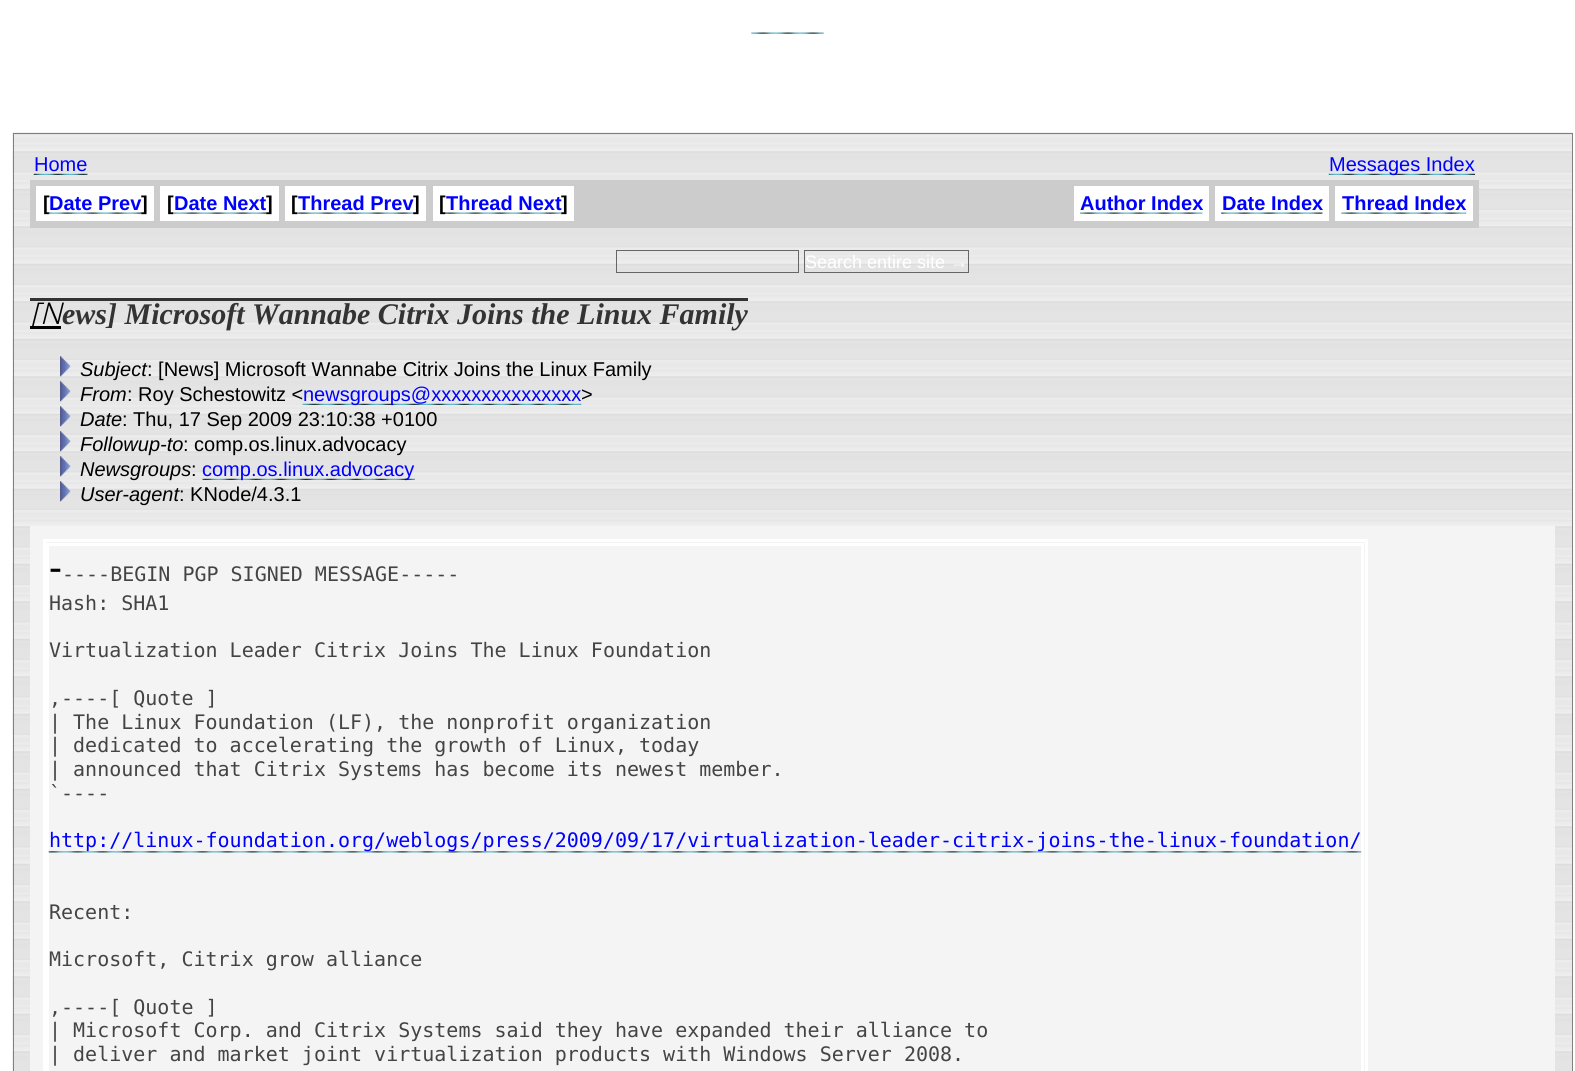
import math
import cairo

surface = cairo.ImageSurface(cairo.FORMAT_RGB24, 1575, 1071)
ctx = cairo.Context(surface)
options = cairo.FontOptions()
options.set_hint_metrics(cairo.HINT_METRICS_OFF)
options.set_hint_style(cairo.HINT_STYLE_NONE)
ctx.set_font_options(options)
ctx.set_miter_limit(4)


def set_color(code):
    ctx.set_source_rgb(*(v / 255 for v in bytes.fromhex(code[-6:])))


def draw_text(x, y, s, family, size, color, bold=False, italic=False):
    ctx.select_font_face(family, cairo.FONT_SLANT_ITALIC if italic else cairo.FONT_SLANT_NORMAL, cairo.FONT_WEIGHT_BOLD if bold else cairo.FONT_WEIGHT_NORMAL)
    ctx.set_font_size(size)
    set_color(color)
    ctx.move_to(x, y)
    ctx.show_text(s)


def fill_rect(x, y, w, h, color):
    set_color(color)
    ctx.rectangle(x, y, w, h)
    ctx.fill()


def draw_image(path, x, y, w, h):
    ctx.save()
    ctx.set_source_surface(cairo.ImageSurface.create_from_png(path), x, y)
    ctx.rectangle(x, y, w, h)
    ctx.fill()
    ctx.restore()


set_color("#ffffff")
ctx.paint()
draw_image("assets/img1.png", 751, 32, 73, 2)
draw_image("assets/img2.png", 12, 132, 1561, 939)
ctx.rectangle(13.5, 133.5, 1559, 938)
set_color("#808080")
ctx.set_line_width(1)
ctx.stroke()
draw_text(34, 171, "Home", "Liberation Sans", 20, "#0000ff")
draw_image("assets/img3.png", 33, 173, 55, 2)
draw_image("assets/img4.png", 1328, 173, 147, 2)
draw_text(1329, 171, "Messages Index", "Liberation Sans", 20, "#0000ff")
fill_rect(30, 180, 1449, 48, "#cccccc")
fill_rect(36, 186, 118, 35, "#ffffff")
draw_text(43, 210, "[", "Liberation Sans", 20, "#000000", bold=True)
draw_text(49, 210, "Date Prev", "Liberation Sans", 20, "#0000ff", bold=True)
draw_image("assets/img5.png", 48, 212, 94, 2)
draw_text(141, 210, "]", "Liberation Sans", 20, "#000000", bold=True)
fill_rect(160, 186, 119, 35, "#ffffff")
draw_text(167, 210, "[", "Liberation Sans", 20, "#000000", bold=True)
draw_text(174, 210, "Date Next", "Liberation Sans", 20, "#0000ff", bold=True)
draw_image("assets/img6.png", 173, 212, 94, 2)
draw_text(266, 210, "]", "Liberation Sans", 20, "#000000", bold=True)
fill_rect(285, 186, 141, 35, "#ffffff")
draw_text(291, 210, "[", "Liberation Sans", 20, "#000000", bold=True)
draw_text(298, 210, "Thread Prev", "Liberation Sans", 20, "#0000ff", bold=True)
draw_image("assets/img7.png", 297, 212, 117, 2)
draw_text(413, 210, "]", "Liberation Sans", 20, "#000000", bold=True)
fill_rect(433, 186, 141, 35, "#ffffff")
draw_text(439, 210, "[", "Liberation Sans", 20, "#000000", bold=True)
draw_text(446, 210, "Thread Next", "Liberation Sans", 20, "#0000ff", bold=True)
draw_image("assets/img8.png", 445, 212, 117, 2)
draw_text(561, 210, "]", "Liberation Sans", 20, "#000000", bold=True)
fill_rect(1074, 186, 135, 35, "#ffffff")
draw_text(1080, 210, "Author Index", "Liberation Sans", 20, "#0000ff", bold=True)
draw_image("assets/img9.png", 1080, 212, 123, 2)
fill_rect(1215, 186, 114, 35, "#ffffff")
draw_text(1222, 210, "Date Index", "Liberation Sans", 20, "#0000ff", bold=True)
draw_image("assets/img10.png", 1221, 212, 102, 2)
fill_rect(1335, 186, 138, 35, "#ffffff")
draw_text(1342, 210, "Thread Index", "Liberation Sans", 20, "#0000ff", bold=True)
draw_image("assets/img11.png", 1341, 212, 126, 2)
ctx.rectangle(616.5, 250.5, 182, 22)
set_color("#666666")
ctx.stroke()
ctx.rectangle(804.5, 250.5, 164, 22)
ctx.stroke()
draw_text(805, 268, "Search entire site →", "Liberation Sans", 18, "#ffffff")
fill_rect(30, 326, 31, 3, "#000000")
draw_text(30, 324, "[N", "Noto Sans Light", 30, "#000000", italic=True)
fill_rect(30, 298, 718, 3, "#333333")
draw_text(62, 324, "ews] Microsoft Wannabe Citrix Joins the Linux Family", "Liberation Serif", 30, "#333333", bold=True, italic=True)
draw_image("assets/img12.png", 60, 356, 11, 21)
draw_text(80, 376, "Subject", "Liberation Sans", 20, "#000000", italic=True)
draw_text(147, 376, ": [News] Microsoft Wannabe Citrix Joins the Linux Family", "Liberation Sans", 20, "#000000")
draw_image("assets/img13.png", 60, 381, 11, 21)
draw_text(80, 401, "From", "Liberation Sans", 20, "#000000", italic=True)
draw_text(127, 401, ": Roy Schestowitz <", "Liberation Sans", 20, "#000000")
draw_image("assets/img14.png", 302, 403, 280, 2)
draw_text(303, 401, "newsgroups@xxxxxxxxxxxxxxx", "Liberation Sans", 20, "#0000ff")
draw_text(581, 401, ">", "Liberation Sans", 20, "#000000")
draw_image("assets/img15.png", 60, 406, 11, 21)
draw_text(80, 426, "Date", "Liberation Sans", 20, "#000000", italic=True)
draw_text(122, 426, ": Thu, 17 Sep 2009 23:10:38 +0100", "Liberation Sans", 20, "#000000")
draw_image("assets/img12.png", 60, 431, 11, 21)
draw_text(80, 451, "Followup-to", "Liberation Sans", 20, "#000000", italic=True)
draw_text(183, 451, ": comp.os.linux.advocacy", "Liberation Sans", 20, "#000000")
draw_image("assets/img13.png", 60, 456, 11, 21)
draw_text(80, 476, "Newsgroups", "Liberation Sans", 20, "#000000", italic=True)
draw_text(191, 476, ":", "Liberation Sans", 20, "#000000")
draw_image("assets/img16.png", 202, 478, 213, 2)
draw_text(202, 476, "comp.os.linux.advocacy", "Liberation Sans", 20, "#0000ff")
draw_image("assets/img15.png", 60, 481, 11, 21)
draw_text(80, 501, "User-agent", "Liberation Sans", 20, "#000000", italic=True)
draw_text(179, 501, ": KNode/4.3.1", "Liberation Sans", 20, "#000000")
fill_rect(30, 526, 1525, 545, "#f4f4f4")
ctx.rectangle(44.5, 540.5, 1322, 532)
set_color("#ffffff")
ctx.set_line_width(3)
ctx.stroke()
ctx.rectangle(47.5, 544.5, 1315, 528)
ctx.stroke()
draw_text(49, 581, "-", "Noto Sans", 40, "#000000")
draw_text(62, 581, "----BEGIN PGP SIGNED MESSAGE-----", "DejaVu Sans Mono", 20, "#444444")
draw_text(49, 610, "Hash: SHA1", "DejaVu Sans Mono", 20, "#444444")
draw_text(49, 657, "Virtualization Leader Citrix Joins The Linux Foundation", "DejaVu Sans Mono", 20, "#444444")
draw_text(49, 705, ",----[ Quote ]", "DejaVu Sans Mono", 20, "#444444")
draw_text(49, 729, "| The Linux Foundation (LF), the nonprofit organization", "DejaVu Sans Mono", 20, "#444444")
draw_text(49, 752, "| dedicated to accelerating the growth of Linux, today", "DejaVu Sans Mono", 20, "#444444")
draw_text(49, 776, "| announced that Citrix Systems has become its newest member.", "DejaVu Sans Mono", 20, "#444444")
draw_text(49, 800, "`----", "DejaVu Sans Mono", 20, "#444444")
draw_image("assets/img17.png", 48, 851, 1314, 2)
draw_text(49, 847, "http://linux-foundation.org/weblogs/press/2009/09/17/virtualization-leader-citrix-joins-the-linux-foundation/", "DejaVu Sans Mono", 20, "#0000ff")
draw_text(49, 919, "Recent:", "DejaVu Sans Mono", 20, "#444444")
draw_text(49, 966, "Microsoft, Citrix grow alliance", "DejaVu Sans Mono", 20, "#444444")
draw_text(49, 1014, ",----[ Quote ]", "DejaVu Sans Mono", 20, "#444444")
draw_text(49, 1037, "| Microsoft Corp. and Citrix Systems said they have expanded their alliance to", "DejaVu Sans Mono", 20, "#444444")
draw_text(49, 1061, "| deliver and market joint virtualization products with Windows Server 2008.", "DejaVu Sans Mono", 20, "#444444")
surface.write_to_png("output.png")
